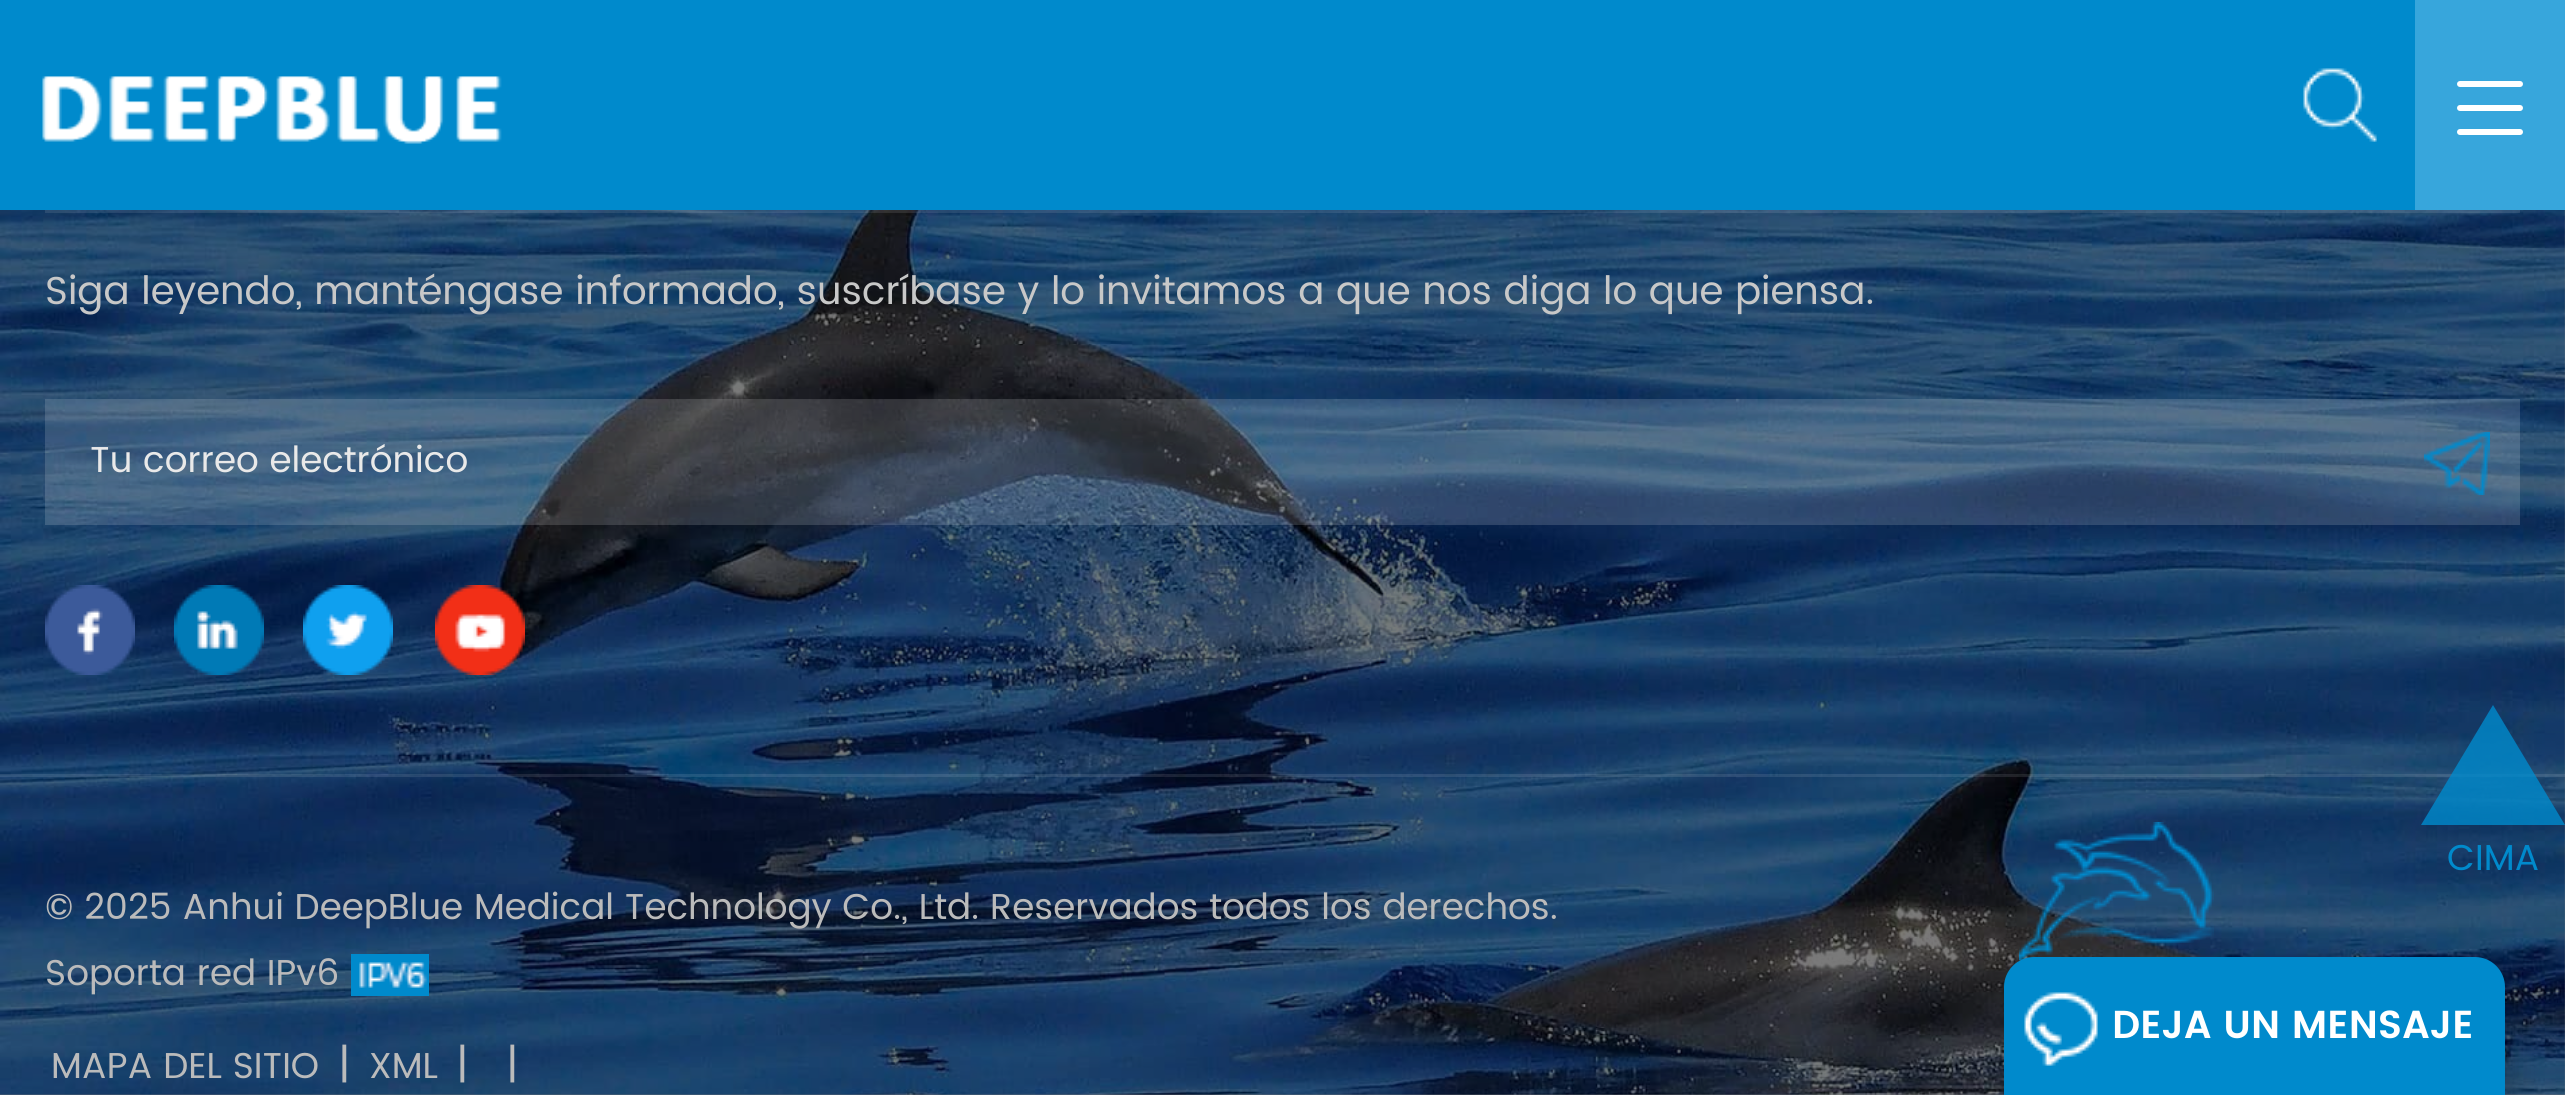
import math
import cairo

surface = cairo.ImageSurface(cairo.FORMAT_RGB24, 2565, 1095)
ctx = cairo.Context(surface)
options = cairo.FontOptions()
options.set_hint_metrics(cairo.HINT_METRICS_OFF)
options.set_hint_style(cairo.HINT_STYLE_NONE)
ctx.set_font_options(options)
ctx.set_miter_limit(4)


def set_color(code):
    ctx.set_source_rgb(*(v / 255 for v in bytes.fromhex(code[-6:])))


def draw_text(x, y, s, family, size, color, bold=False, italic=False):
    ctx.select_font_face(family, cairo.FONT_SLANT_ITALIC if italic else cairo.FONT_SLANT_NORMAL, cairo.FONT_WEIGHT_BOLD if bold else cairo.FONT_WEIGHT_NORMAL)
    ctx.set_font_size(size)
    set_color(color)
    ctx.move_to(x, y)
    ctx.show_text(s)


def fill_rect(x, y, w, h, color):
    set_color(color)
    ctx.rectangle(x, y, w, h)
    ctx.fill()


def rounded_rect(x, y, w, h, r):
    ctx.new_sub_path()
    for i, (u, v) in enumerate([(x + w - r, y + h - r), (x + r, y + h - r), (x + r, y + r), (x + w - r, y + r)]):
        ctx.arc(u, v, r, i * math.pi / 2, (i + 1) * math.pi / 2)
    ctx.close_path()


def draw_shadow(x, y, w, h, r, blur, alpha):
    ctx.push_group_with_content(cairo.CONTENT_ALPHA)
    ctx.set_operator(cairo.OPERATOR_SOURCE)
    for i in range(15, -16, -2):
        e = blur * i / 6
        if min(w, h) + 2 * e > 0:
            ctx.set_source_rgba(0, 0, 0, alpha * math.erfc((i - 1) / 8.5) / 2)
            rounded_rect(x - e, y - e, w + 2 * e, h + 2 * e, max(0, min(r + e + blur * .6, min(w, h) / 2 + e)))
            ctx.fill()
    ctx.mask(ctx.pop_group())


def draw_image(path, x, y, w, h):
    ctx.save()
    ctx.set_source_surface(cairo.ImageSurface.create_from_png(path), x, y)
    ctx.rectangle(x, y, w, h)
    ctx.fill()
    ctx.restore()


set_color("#7a7a7a")
ctx.paint()
fill_rect(0, 0, 2415, 210, "#008acc")
draw_image("assets/img1.png", 42, 76, 460, 68)
draw_image("assets/img2.png", 2303, 68, 74, 74)
fill_rect(2415, 0, 150, 210, "#37a6dc")
set_color("#ffffff")
rounded_rect(2457, 105, 66, 6, 3)
ctx.fill()
rounded_rect(2457, 81, 66, 6, 3)
ctx.fill()
rounded_rect(2457, 129, 66, 6, 3)
ctx.fill()
draw_image("assets/img3.png", 0, 210, 2565, 885)
ctx.set_source_rgba(1, 1, 1, 0.1)
ctx.rectangle(45, 210, 2475, 3)
ctx.fill()
draw_text(45, 304, "Siga leyendo, manténgase informado, suscríbase y lo invitamos a que nos diga lo que piensa.", "Poppins", 39, "#c8c8c8")
ctx.set_source_rgba(1, 1, 1, 0.15)
ctx.rectangle(45, 399, 2475, 126)
ctx.fill()
draw_text(90, 472, "Tu correo electrónico", "Poppins", 36, "#e9e9e9")
draw_image("assets/img4.png", 2424, 432, 66, 63)
draw_image("assets/img5.png", 45, 585, 90, 90)
draw_image("assets/img6.png", 174, 585, 90, 90)
draw_image("assets/img7.png", 303, 585, 90, 90)
draw_image("assets/img8.png", 435, 585, 90, 90)
ctx.set_source_rgba(1, 1, 1, 0.1)
ctx.rectangle(0, 774, 2565, 3)
ctx.fill()
draw_text(45, 919, "© 2025 Anhui DeepBlue Medical Technology Co., Ltd. Reservados todos los derechos.", "Poppins", 36, "#bbbbbb")
draw_text(45, 985, "Soporta red IPv6", "Poppins", 36, "#bbbbbb")
draw_image("assets/img9.png", 351, 954, 78, 42)
draw_text(51, 1078, "MAPA DEL SITIO", "Poppins", 36, "#bbbbbb")
draw_text(338, 1078, "|", "Poppins", 42, "#bbbbbb")
draw_text(369, 1078, "XML", "Poppins", 36, "#bbbbbb")
draw_text(456, 1078, "|", "Poppins", 42, "#bbbbbb")
draw_text(506, 1078, "|", "Poppins", 42, "#bbbbbb")
ctx.set_source_rgba(0, 0.541, 0.8, 0.8)
ctx.new_path()
ctx.move_to(2493, 705)
ctx.line_to(2421, 825)
ctx.line_to(2565, 825)
ctx.close_path()
ctx.fill()
draw_text(2447, 870, "CIMA", "Poppins", 36, "#008acc")
set_color("#000000")
draw_shadow(2016, 972, 501, 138, 30, 12, 0.15)
set_color("#008acc")
ctx.new_path()
ctx.move_to(2034, 957)
ctx.line_to(2475, 957)
ctx.curve_to(2491.5, 957, 2505, 970.5, 2505, 987)
ctx.line_to(2505, 1095)
ctx.line_to(2004, 1095)
ctx.line_to(2004, 987)
ctx.curve_to(2004, 970.5, 2017.5, 957, 2034, 957)
ctx.close_path()
ctx.fill()
draw_image("assets/img10.png", 2019, 822, 195, 138)
draw_image("assets/img11.png", 2024, 992, 74, 74)
draw_text(2112, 1038, "DEJA UN MENSAJE", "Poppins SemiBold", 39, "#ffffff")
surface.write_to_png("output.png")
